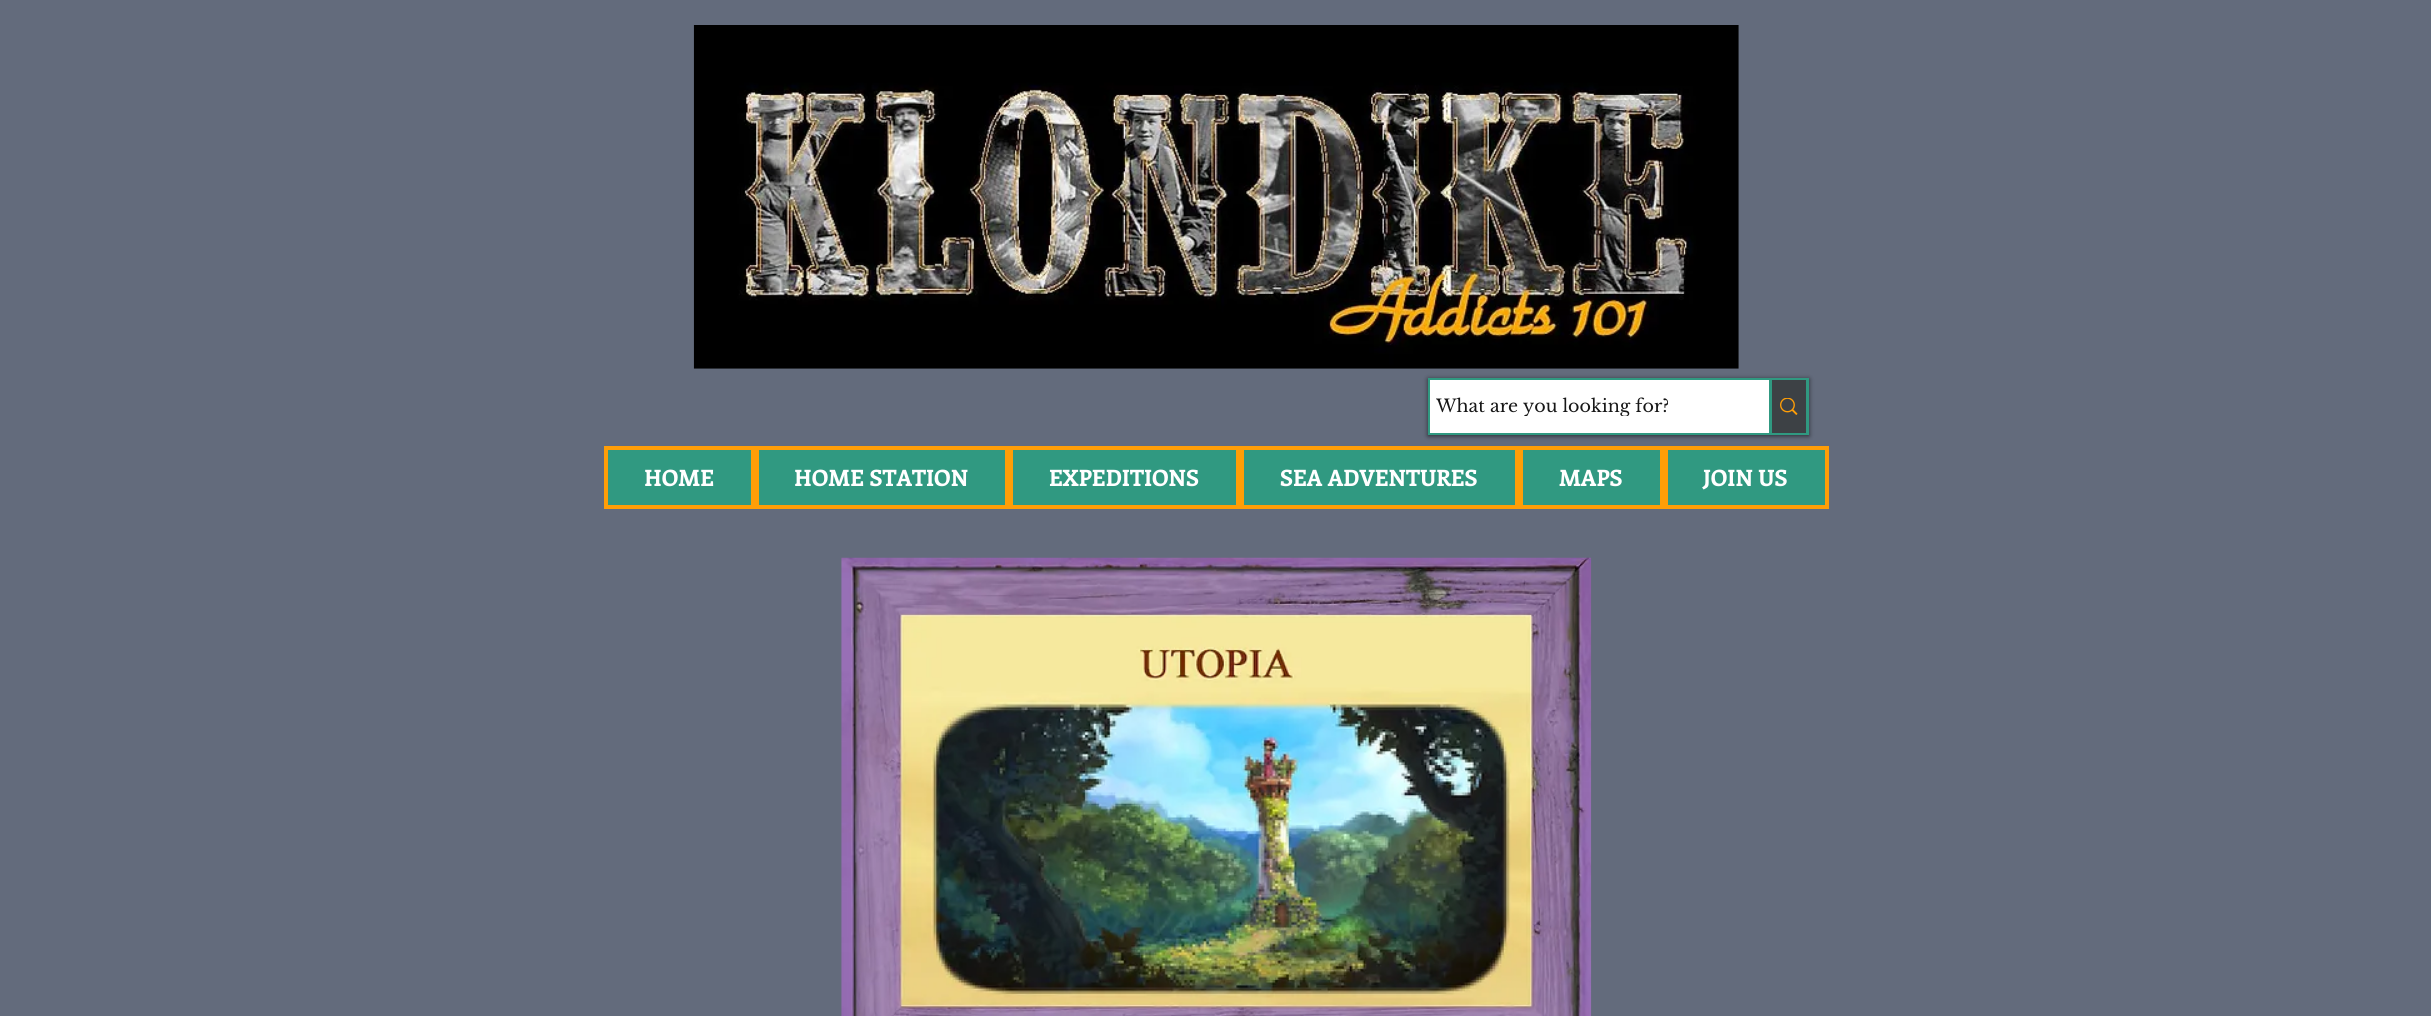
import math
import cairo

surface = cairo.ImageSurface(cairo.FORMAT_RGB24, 2431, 1016)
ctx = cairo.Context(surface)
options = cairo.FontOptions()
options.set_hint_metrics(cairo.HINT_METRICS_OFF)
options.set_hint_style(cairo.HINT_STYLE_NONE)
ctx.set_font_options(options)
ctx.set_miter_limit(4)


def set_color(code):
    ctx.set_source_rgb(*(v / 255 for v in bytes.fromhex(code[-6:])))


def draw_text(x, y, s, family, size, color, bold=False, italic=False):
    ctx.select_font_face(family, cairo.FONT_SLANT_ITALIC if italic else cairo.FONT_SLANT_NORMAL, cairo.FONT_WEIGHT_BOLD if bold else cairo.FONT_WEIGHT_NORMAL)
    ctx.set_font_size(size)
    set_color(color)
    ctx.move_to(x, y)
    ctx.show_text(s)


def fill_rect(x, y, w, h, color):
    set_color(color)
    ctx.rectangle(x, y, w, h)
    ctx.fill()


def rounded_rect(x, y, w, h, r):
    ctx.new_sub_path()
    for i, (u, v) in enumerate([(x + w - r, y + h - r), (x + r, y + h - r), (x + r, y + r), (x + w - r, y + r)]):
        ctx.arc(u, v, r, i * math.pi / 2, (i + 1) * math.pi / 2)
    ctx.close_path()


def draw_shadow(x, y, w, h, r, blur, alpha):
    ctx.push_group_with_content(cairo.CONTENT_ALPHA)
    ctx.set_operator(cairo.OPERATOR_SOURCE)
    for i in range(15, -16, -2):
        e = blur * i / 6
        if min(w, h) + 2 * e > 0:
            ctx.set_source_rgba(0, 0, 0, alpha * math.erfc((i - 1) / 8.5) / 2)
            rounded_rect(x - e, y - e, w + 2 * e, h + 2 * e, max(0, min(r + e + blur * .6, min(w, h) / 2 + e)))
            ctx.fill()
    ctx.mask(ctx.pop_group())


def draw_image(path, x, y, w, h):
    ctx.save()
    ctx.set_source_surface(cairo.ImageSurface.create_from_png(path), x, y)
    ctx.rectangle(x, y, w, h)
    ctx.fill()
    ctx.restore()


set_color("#636b7c")
ctx.paint()
draw_image("assets/img1.png", 693, 25, 1046, 344)
set_color("#000000")
draw_shadow(1428, 379, 381, 57, 0, 2.5, 0.6)
ctx.rectangle(1429.5, 379.5, 378, 54)
set_color("#309981")
ctx.set_line_width(3)
ctx.stroke()
fill_rect(1430, 380, 339, 53, "#ffffff")
ctx.save()
ctx.rectangle(1436, 394, 280, 22)
ctx.clip()
draw_text(1436, 412, "What are you looking for?", "Libre Baskerville", 17.5, "#171717")
ctx.restore()
fill_rect(1772, 380, 34, 53, "#3d4145")
fill_rect(1769, 380, 3, 53, "#309981")
draw_image("assets/img2.png", 1780, 398, 18, 17)
ctx.rectangle(606, 448, 147, 59)
ctx.fill_preserve()
set_color("#ff9e07")
ctx.set_line_width(4)
ctx.stroke()
draw_text(644, 486, "HOME", "Enriqueta", 22.5, "#ffffff", bold=True)
set_color("#309981")
ctx.rectangle(757, 448, 250, 59)
ctx.fill_preserve()
set_color("#ff9e07")
ctx.stroke()
draw_text(794, 486, "HOME STATION", "Enriqueta", 22.5, "#ffffff", bold=True)
set_color("#309981")
ctx.rectangle(1011, 448, 227, 59)
ctx.fill_preserve()
set_color("#ff9e07")
ctx.stroke()
draw_text(1049, 486, "EXPEDITIONS", "Enriqueta", 22.5, "#ffffff", bold=True)
set_color("#309981")
ctx.rectangle(1242, 448, 275, 59)
ctx.fill_preserve()
set_color("#ff9e07")
ctx.stroke()
draw_text(1280, 486, "SEA ADVENTURES", "Enriqueta", 22.5, "#ffffff", bold=True)
set_color("#309981")
ctx.rectangle(1521, 448, 141, 59)
ctx.fill_preserve()
set_color("#ff9e07")
ctx.stroke()
draw_text(1559, 486, "MAPS", "Enriqueta", 22.5, "#ffffff", bold=True)
set_color("#309981")
ctx.rectangle(1666, 448, 161, 59)
ctx.fill_preserve()
set_color("#ff9e07")
ctx.stroke()
draw_text(1703, 486, "JOIN US", "Enriqueta", 22.5, "#ffffff", bold=True)
draw_image("assets/img3.png", 841, 557, 751, 459)
surface.write_to_png("output.png")
